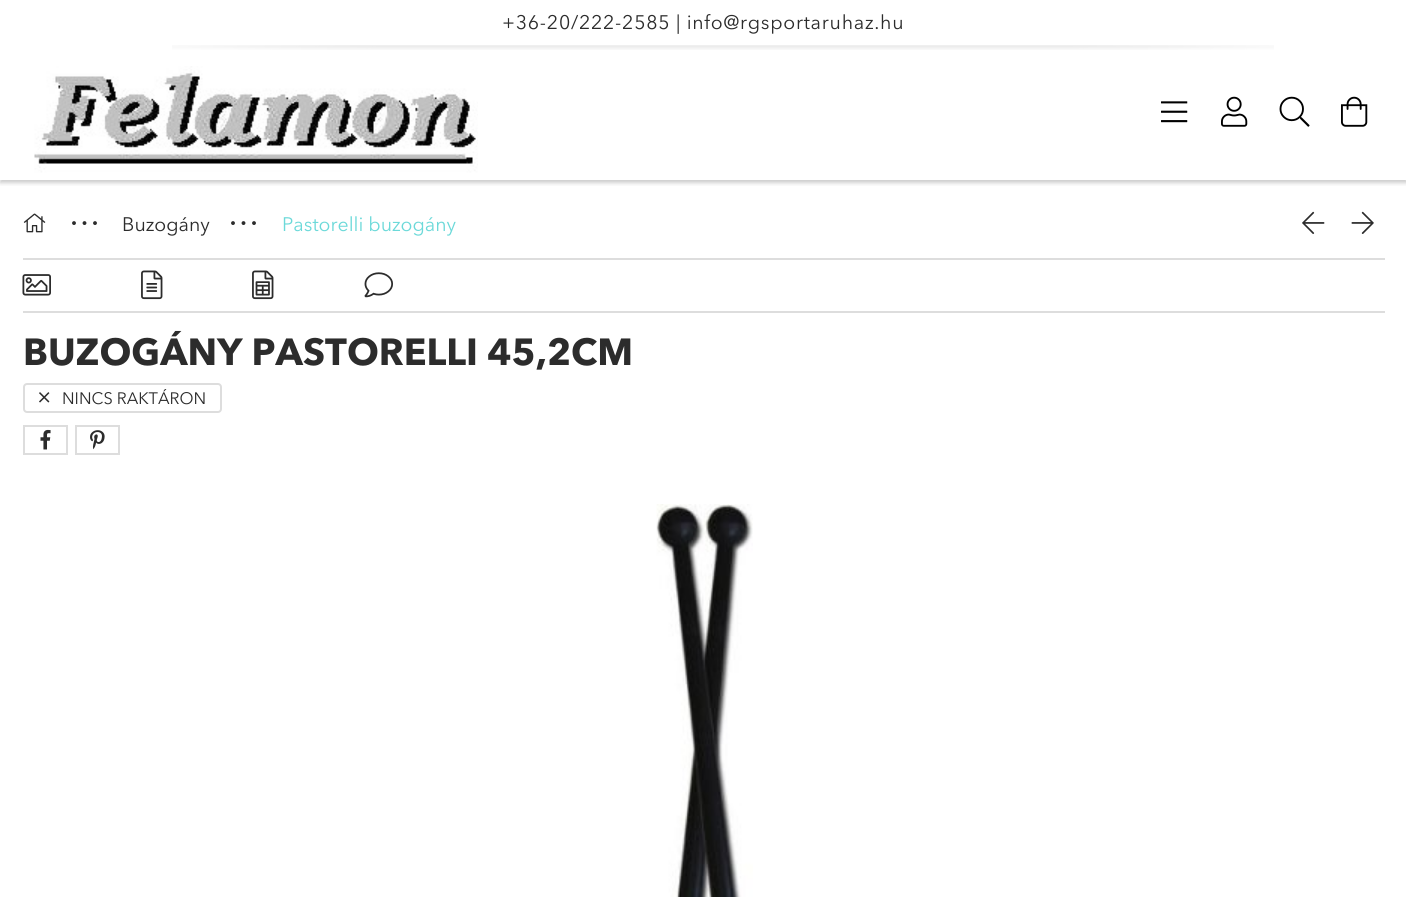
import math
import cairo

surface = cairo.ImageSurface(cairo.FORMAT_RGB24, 1406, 897)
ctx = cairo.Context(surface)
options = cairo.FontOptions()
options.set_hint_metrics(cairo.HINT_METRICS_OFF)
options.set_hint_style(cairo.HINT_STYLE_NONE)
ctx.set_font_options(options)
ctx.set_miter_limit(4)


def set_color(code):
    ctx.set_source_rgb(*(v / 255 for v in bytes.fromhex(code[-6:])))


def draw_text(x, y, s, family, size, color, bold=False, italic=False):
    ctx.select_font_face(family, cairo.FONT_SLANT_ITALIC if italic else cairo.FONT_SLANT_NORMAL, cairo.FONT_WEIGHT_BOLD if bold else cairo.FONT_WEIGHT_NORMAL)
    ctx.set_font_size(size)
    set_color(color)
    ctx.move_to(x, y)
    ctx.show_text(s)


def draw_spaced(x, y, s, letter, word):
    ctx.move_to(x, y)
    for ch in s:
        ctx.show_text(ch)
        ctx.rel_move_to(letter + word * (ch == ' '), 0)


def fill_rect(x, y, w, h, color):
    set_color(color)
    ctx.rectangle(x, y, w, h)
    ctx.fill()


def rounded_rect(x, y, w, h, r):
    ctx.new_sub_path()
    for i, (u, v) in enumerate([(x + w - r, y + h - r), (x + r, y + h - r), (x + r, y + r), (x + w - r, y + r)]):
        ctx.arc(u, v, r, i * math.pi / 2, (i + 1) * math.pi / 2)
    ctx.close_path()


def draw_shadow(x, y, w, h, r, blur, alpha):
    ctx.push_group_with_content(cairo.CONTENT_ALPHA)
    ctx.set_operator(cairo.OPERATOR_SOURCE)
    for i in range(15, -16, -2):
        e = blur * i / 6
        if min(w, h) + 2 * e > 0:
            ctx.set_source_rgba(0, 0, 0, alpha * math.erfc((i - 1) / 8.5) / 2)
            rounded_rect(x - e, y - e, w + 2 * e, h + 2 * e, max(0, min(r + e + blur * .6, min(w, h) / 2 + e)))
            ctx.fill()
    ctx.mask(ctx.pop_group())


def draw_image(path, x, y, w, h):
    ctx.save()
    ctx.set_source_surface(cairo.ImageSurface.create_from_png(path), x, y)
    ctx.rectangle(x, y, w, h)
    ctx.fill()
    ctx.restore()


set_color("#ffffff")
ctx.paint()
ctx.save()
ctx.rectangle(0, 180, 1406, 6)
ctx.clip()
set_color("#000000")
draw_shadow(0, 3, 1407, 180, 0, 2, 0.2)
ctx.restore()
ctx.select_font_face("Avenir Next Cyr")
ctx.set_font_size(19.5)
set_color("#2c2c2c")
draw_spaced(502, 29, "+36-20/222-2585 | info@rgsportaruhaz.hu", 0.75, 0)
draw_image("assets/img1.png", 172, 45, 1102, 5)
draw_image("assets/img2.png", 34, 66, 444, 107)
draw_image("assets/img3.png", 1161, 101, 27, 22)
draw_image("assets/img4.png", 1221, 96, 27, 31)
draw_image("assets/img5.png", 1279, 96, 31, 31)
draw_image("assets/img6.png", 1341, 96, 27, 31)
draw_image("assets/img7.png", 23, 213, 23, 20)
ctx.select_font_face("Liberation Serif", cairo.FONT_SLANT_NORMAL, cairo.FONT_WEIGHT_BOLD)
ctx.set_font_size(24)
draw_spaced(71, 231, "∙∙∙", 4.5, 0)
draw_text(122, 231, "Buzogány", "Avenir Next Cyr", 19.5, "#2c2c2c")
ctx.select_font_face("Liberation Serif", cairo.FONT_SLANT_NORMAL, cairo.FONT_WEIGHT_BOLD)
ctx.set_font_size(24)
draw_spaced(230, 231, "∙∙∙", 4.5, 0)
draw_text(282, 231, "Pastorelli buzogány", "Avenir Next Cyr", 19.5, "#6cd9d9")
draw_image("assets/img8.png", 1302, 211, 23, 23)
draw_image("assets/img9.png", 1351, 211, 23, 23)
fill_rect(23, 258, 1362, 2, "#dddddd")
fill_rect(23, 311, 1362, 2, "#dddddd")
draw_image("assets/img10.png", 22, 274, 29, 22)
draw_image("assets/img11.png", 141, 270, 22, 30)
draw_image("assets/img12.png", 252, 270, 22, 30)
draw_image("assets/img13.png", 364, 272, 29, 26)
draw_text(23, 365, "BUZOGÁNY PASTORELLI 45,2CM", "Avenir Next Cyr", 37.5, "#2c2c2c", bold=True)
rounded_rect(24, 384, 197, 28, 3)
set_color("#dddddd")
ctx.stroke()
draw_image("assets/img14.png", 39, 392, 11, 11)
draw_text(62, 404, "NINCS RAKTÁRON", "Avenir Next Cyr", 16.5, "#2c2c2c")
ctx.rectangle(24, 426, 43, 28)
set_color("#dddddd")
ctx.stroke()
draw_image("assets/img15.png", 40, 429, 11, 21)
ctx.rectangle(76, 426, 43, 28)
ctx.stroke()
draw_image("assets/img16.png", 90, 430, 15, 20)
draw_image("assets/img17.png", 656, 504, 97, 393)
surface.write_to_png("output.png")
